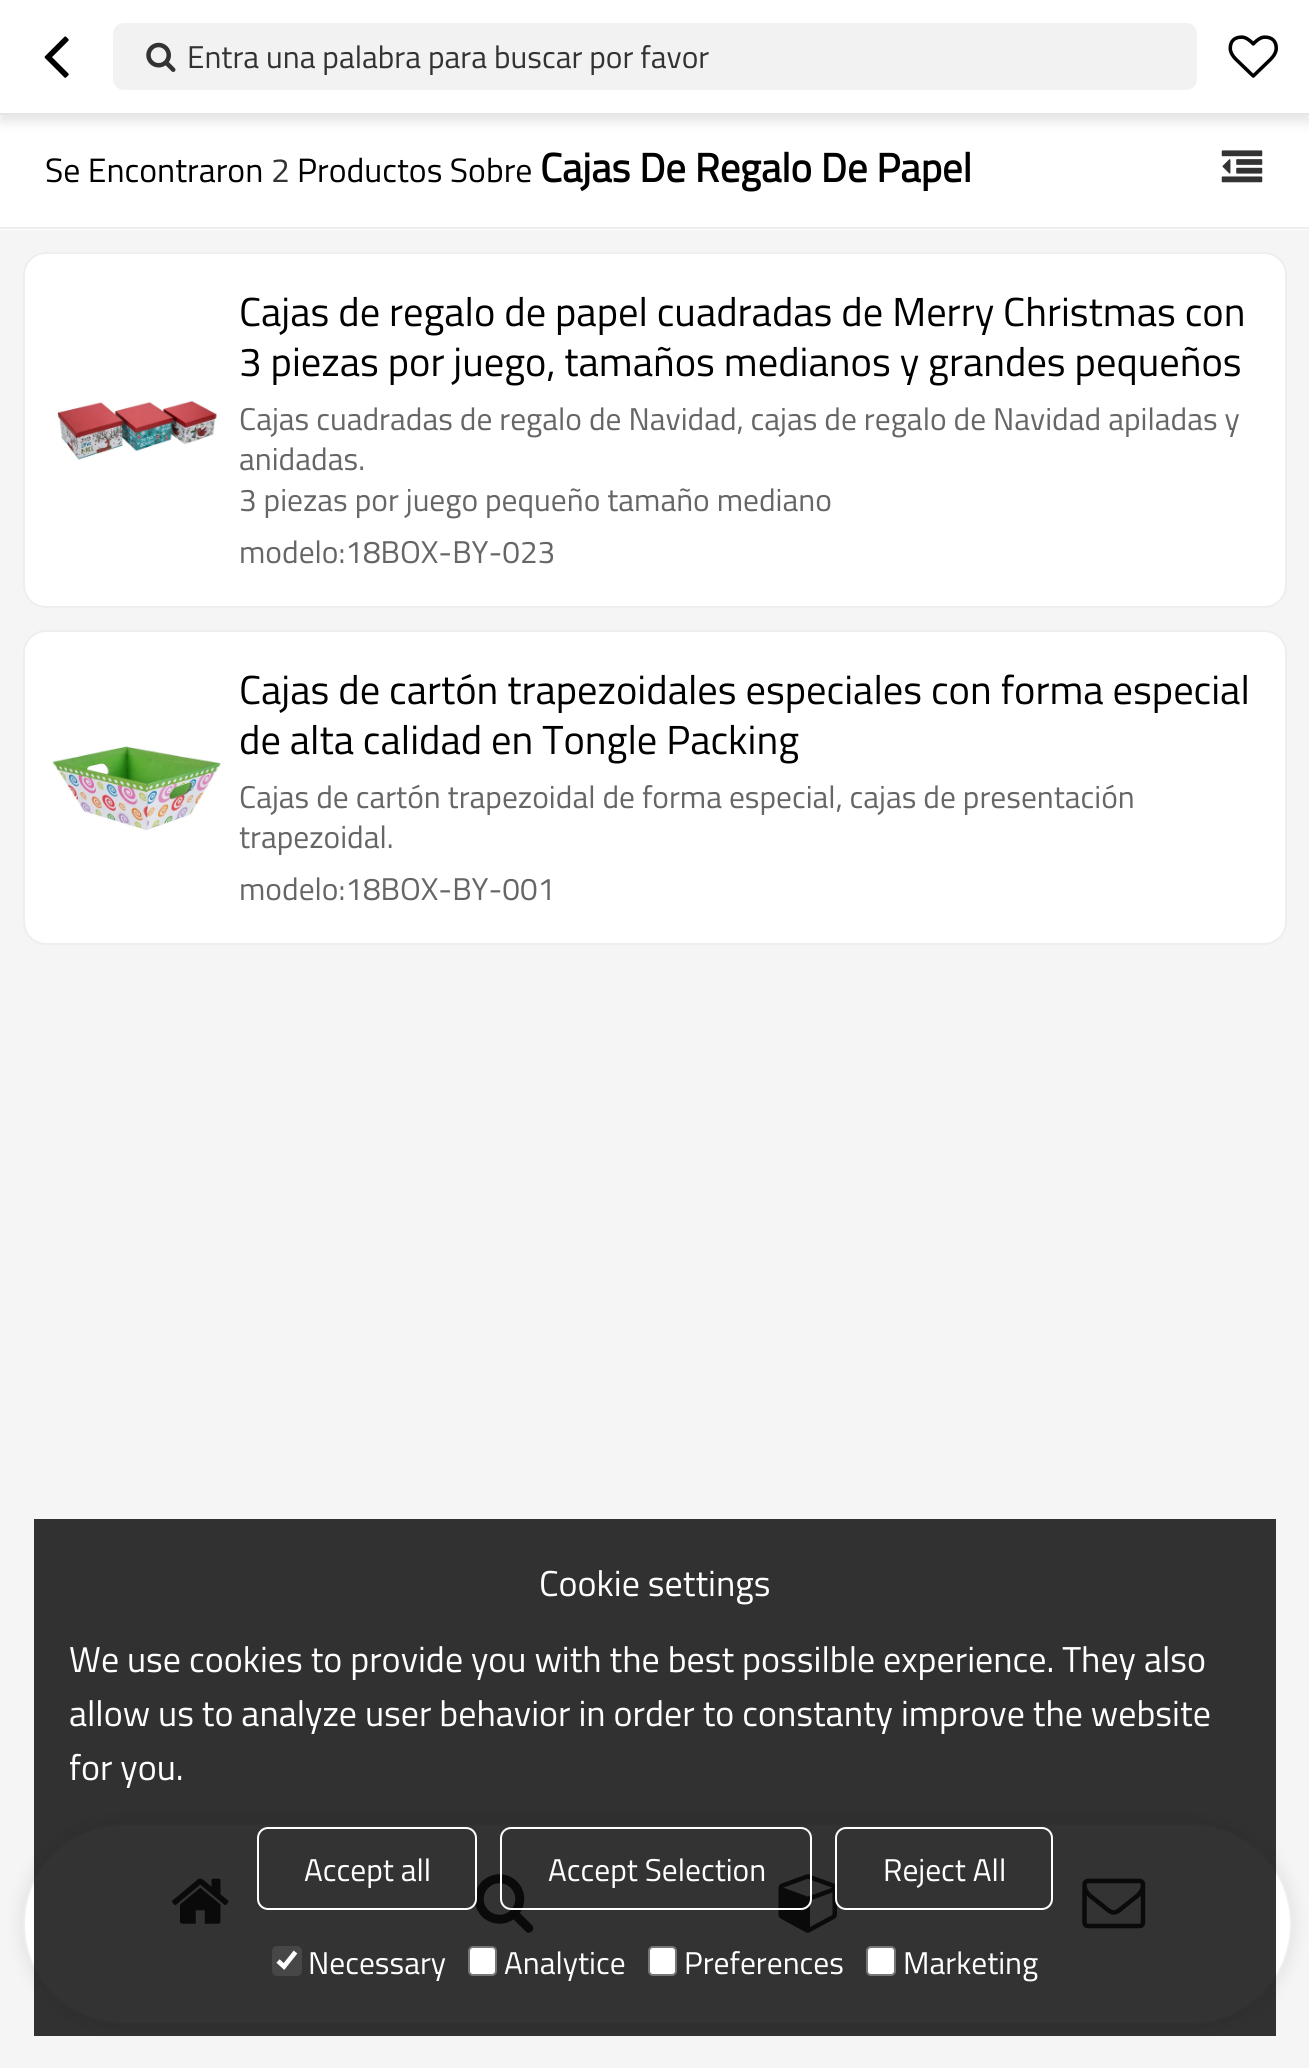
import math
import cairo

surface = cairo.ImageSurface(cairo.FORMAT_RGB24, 1309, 2068)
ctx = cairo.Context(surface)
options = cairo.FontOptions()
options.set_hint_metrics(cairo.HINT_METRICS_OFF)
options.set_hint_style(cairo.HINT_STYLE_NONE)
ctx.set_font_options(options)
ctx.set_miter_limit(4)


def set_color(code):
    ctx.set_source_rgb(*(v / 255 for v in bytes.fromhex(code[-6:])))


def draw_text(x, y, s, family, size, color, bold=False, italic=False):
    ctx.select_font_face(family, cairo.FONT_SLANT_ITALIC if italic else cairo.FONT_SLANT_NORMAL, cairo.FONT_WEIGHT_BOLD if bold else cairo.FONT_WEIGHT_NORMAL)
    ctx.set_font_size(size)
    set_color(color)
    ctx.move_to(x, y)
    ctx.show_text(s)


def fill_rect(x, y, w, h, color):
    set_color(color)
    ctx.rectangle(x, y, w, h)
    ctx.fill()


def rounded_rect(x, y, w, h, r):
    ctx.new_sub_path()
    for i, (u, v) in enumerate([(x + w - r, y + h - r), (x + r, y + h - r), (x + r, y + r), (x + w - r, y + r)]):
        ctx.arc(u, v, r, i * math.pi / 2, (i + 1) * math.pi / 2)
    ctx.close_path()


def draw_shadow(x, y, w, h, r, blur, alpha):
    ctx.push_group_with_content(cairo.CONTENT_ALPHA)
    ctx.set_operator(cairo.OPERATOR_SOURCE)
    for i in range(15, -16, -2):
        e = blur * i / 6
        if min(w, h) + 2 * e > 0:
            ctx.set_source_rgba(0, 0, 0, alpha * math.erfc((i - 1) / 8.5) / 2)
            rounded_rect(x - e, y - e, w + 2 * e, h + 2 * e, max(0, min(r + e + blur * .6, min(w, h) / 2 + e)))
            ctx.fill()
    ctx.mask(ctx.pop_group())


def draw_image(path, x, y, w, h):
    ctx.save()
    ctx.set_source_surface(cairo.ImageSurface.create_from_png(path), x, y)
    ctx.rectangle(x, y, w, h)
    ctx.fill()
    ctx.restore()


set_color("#f5f5f5")
ctx.paint()
fill_rect(0, 115, 1309, 115, "#ffffff")
set_color("#000000")
draw_shadow(0, 7, 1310, 115, 0, 5.5, 0.1)
fill_rect(0, 0, 1309, 113, "#ffffff")
fill_rect(0, 113, 1309, 2, "#e5e5e5")
draw_image("assets/img1.png", 44, 36, 25, 42)
set_color("#f2f2f2")
rounded_rect(113, 23, 1084, 67, 11)
ctx.fill()
draw_image("assets/img2.png", 146, 42, 30, 30)
draw_text(187, 68, "Entra una palabra para buscar por favor", "Titillium Web", 31.5, "#333333")
draw_image("assets/img3.png", 1228, 35, 50, 43)
fill_rect(0, 227, 1309, 2, "#eeeeee")
draw_text(45, 182, "Se Encontraron", "Titillium Web", 33.75, "#000000")
draw_text(271, 182, "2", "Titillium Web", 33.75, "#333333")
draw_text(297, 182, "Productos Sobre", "Titillium Web", 33.75, "#000000")
draw_text(540, 182, "Cajas De Regalo De Papel", "Titillium Web", 40.5, "#000000", bold=True)
draw_image("assets/img4.png", 1221, 150, 42, 33)
set_color("#ffffff")
rounded_rect(24, 253, 1262, 354, 22)
ctx.fill_preserve()
set_color("#eeeeee")
ctx.stroke()
draw_image("assets/img5.png", 57, 401, 160, 59)
draw_text(239, 326, "Cajas de regalo de papel cuadradas de Merry Christmas con", "Titillium Web", 40.5, "#000000")
draw_text(239, 376, "3 piezas por juego, tamaños medianos y grandes pequeños", "Titillium Web", 40.5, "#000000")
draw_text(239, 430, "Cajas cuadradas de regalo de Navidad, cajas de regalo de Navidad apiladas y", "Titillium Web", 31.5, "#666666")
draw_text(239, 470, "anidadas.", "Titillium Web", 31.5, "#666666")
draw_text(239, 511, "3 piezas por juego pequeño tamaño mediano", "Titillium Web", 31.5, "#666666")
draw_text(239, 563, "modelo:18BOX-BY-023", "Titillium Web", 31.5, "#666666")
set_color("#ffffff")
rounded_rect(24, 631, 1262, 313, 22)
ctx.fill_preserve()
set_color("#eeeeee")
ctx.stroke()
draw_image("assets/img6.png", 52, 746, 169, 85)
draw_text(239, 704, "Cajas de cartón trapezoidales especiales con forma especial", "Titillium Web", 40.5, "#000000")
draw_text(239, 754, "de alta calidad en Tongle Packing", "Titillium Web", 40.5, "#000000")
draw_text(239, 808, "Cajas de cartón trapezoidal de forma especial, cajas de presentación", "Titillium Web", 31.5, "#666666")
draw_text(239, 848, "trapezoidal.", "Titillium Web", 31.5, "#666666")
draw_text(239, 900, "modelo:18BOX-BY-001", "Titillium Web", 31.5, "#666666")
set_color("#000000")
draw_shadow(23, 1823, 1269, 202, 101, 9, 0.1)
set_color("#ffffff")
rounded_rect(24, 1824, 1267, 200, 100)
ctx.fill_preserve()
set_color("#eeeeee")
ctx.stroke()
draw_image("assets/img7.png", 171, 1878, 58, 46)
draw_image("assets/img8.png", 474, 1874, 60, 59)
draw_image("assets/img9.png", 778, 1874, 59, 59)
draw_image("assets/img10.png", 1082, 1878, 64, 51)
ctx.set_source_rgba(0, 0, 0, 0.8)
ctx.rectangle(34, 1519, 1242, 517)
ctx.fill()
draw_text(539, 1596, "Cookie settings", "Titillium Web", 36, "#ffffff")
draw_text(69, 1672, "We use cookies to provide you with the best possilble experience. They also", "Titillium Web", 36, "#ffffff")
draw_text(69, 1726, "allow us to analyze user behavior in order to constanty improve the website", "Titillium Web", 36, "#ffffff")
draw_text(69, 1780, "for you.", "Titillium Web", 36, "#ffffff")
rounded_rect(258, 1828, 218, 81, 10)
ctx.stroke()
draw_text(304, 1881, "Accept all", "Titillium Web", 31.5, "#ffffff")
rounded_rect(501, 1828, 310, 81, 10)
ctx.stroke()
draw_text(548, 1881, "Accept Selection", "Titillium Web", 31.5, "#ffffff")
rounded_rect(836, 1828, 216, 81, 10)
ctx.stroke()
draw_text(883, 1881, "Reject All", "Titillium Web", 31.5, "#ffffff")
set_color("#474747")
rounded_rect(272, 1946, 30, 30, 5)
ctx.fill()
ctx.new_path()
ctx.move_to(278, 1961)
ctx.line_to(284, 1966.5)
ctx.line_to(295.5, 1952)
set_color("#ffffff")
ctx.set_line_width(4.7)
ctx.stroke()
draw_text(308, 1974, "Necessary", "Titillium Web", 31.5, "#ffffff")
rounded_rect(469, 1947, 27, 28, 4)
ctx.fill_preserve()
set_color("#767676")
ctx.set_line_width(2)
ctx.stroke()
draw_text(504, 1974, "Analytice", "Titillium Web", 31.5, "#ffffff")
rounded_rect(649, 1947, 27, 28, 4)
ctx.fill_preserve()
set_color("#767676")
ctx.stroke()
draw_text(684, 1974, "Preferences", "Titillium Web", 31.5, "#ffffff")
rounded_rect(867, 1947, 28, 28, 4)
ctx.fill_preserve()
set_color("#767676")
ctx.stroke()
draw_text(903, 1974, "Marketing", "Titillium Web", 31.5, "#ffffff")
surface.write_to_png("output.png")
